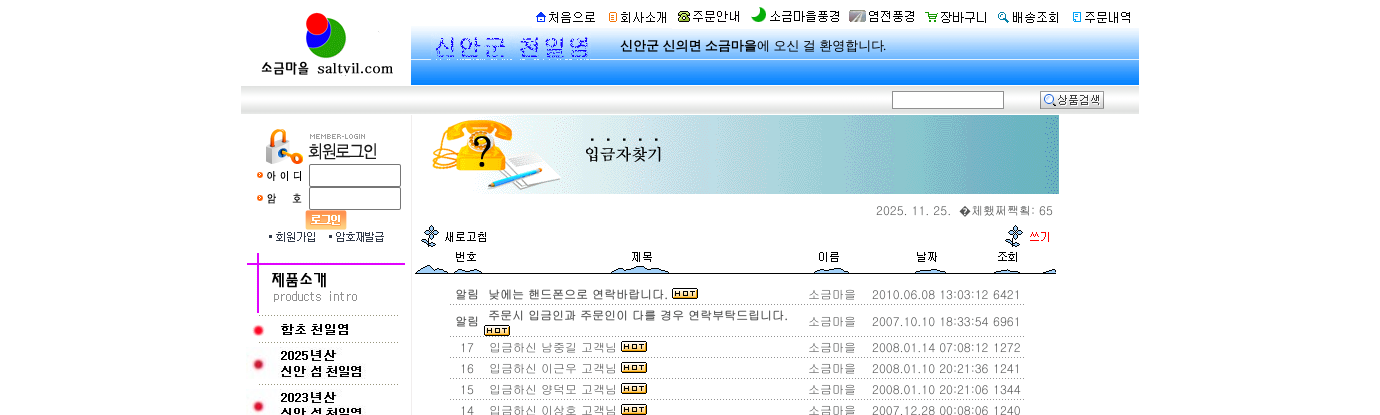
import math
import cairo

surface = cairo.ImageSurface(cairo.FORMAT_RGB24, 1380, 415)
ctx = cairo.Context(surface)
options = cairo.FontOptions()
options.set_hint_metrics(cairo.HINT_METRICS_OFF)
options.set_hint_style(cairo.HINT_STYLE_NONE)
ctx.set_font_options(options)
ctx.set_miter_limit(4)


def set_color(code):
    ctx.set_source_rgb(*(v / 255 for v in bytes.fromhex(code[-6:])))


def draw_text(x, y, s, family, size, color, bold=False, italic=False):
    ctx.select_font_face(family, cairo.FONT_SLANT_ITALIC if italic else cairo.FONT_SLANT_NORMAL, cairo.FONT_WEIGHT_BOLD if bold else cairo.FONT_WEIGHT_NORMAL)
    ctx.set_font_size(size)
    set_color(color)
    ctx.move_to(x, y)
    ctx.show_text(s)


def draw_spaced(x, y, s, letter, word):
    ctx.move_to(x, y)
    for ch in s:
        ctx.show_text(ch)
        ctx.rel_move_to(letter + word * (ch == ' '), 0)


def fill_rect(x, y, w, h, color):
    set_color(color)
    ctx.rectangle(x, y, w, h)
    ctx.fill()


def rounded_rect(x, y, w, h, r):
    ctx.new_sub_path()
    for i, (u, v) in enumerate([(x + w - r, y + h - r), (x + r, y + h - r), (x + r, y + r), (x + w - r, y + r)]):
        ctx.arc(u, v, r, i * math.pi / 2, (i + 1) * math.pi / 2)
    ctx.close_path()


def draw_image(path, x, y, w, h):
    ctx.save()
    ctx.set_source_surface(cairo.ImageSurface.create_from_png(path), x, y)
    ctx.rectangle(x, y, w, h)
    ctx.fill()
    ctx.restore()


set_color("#ffffff")
ctx.paint()
draw_image("assets/img1.png", 261, 12, 132, 64)
draw_image("assets/img2.png", 411, 26, 728, 6)
draw_image("assets/img3.png", 532, 12, 69, 16)
draw_image("assets/img4.png", 601, 12, 71, 16)
draw_image("assets/img5.png", 672, 11, 74, 18)
draw_image("assets/img6.png", 746, 7, 100, 22)
draw_image("assets/img7.png", 846, 10, 74, 19)
draw_image("assets/img8.png", 920, 12, 72, 16)
draw_image("assets/img9.png", 992, 12, 74, 16)
draw_image("assets/img10.png", 1066, 12, 73, 16)
draw_image("assets/img11.png", 411, 32, 200, 28)
draw_image("assets/img12.png", 431, 33, 160, 27)
draw_image("assets/img13.png", 611, 32, 528, 28)
ctx.select_font_face("WenQuanYi Zen Hei", cairo.FONT_SLANT_NORMAL, cairo.FONT_WEIGHT_BOLD)
ctx.set_font_size(13)
set_color("#000000")
draw_spaced(620, 50, "신안군 신의면 소금마을", 0, -0.5)
ctx.select_font_face("WenQuanYi Zen Hei Medium")
draw_spaced(757, 50, "에 오신 걸 환영합니다", 0, -0.5)
draw_text(883, 50, ".", "Liberation Serif", 13, "#000000")
draw_image("assets/img14.png", 411, 60, 728, 25)
draw_image("assets/img15.png", 241, 86, 599, 28)
draw_image("assets/img16.png", 840, 86, 299, 28)
set_color("#ffffff")
ctx.rectangle(892.5, 91.5, 111, 17)
ctx.fill_preserve()
set_color("#909090")
ctx.set_line_width(1)
ctx.stroke()
draw_image("assets/img17.png", 1040, 91, 64, 18)
draw_image("assets/img18.png", 266, 129, 110, 35)
draw_image("assets/img19.png", 257, 171, 44, 10)
rounded_rect(309.5, 164.5, 91, 22, 1.5)
set_color("#767676")
ctx.stroke()
draw_image("assets/img20.png", 257, 193, 45, 11)
rounded_rect(309.5, 187.5, 91, 22, 1.5)
ctx.stroke()
draw_image("assets/img21.png", 305, 210, 42, 20)
draw_image("assets/img22.png", 269, 232, 46, 10)
draw_image("assets/img23.png", 329, 232, 55, 10)
draw_image("assets/img24.png", 247, 253, 158, 60)
draw_image("assets/img25.png", 259, 315, 139, 1)
draw_image("assets/img26.png", 252, 324, 96, 13)
draw_image("assets/img25.png", 259, 342, 139, 1)
draw_image("assets/img27.png", 246, 347, 120, 32)
draw_image("assets/img25.png", 259, 384, 139, 1)
draw_image("assets/img28.png", 246, 389, 120, 26)
fill_rect(411, 115, 1, 300, "#f1eeee")
draw_image("assets/img29.png", 432, 115, 627, 79)
draw_text(876, 215, "2025. 11. 25.", "Gulim", 12, "#545555")
draw_text(959, 215, "�", "Noto Sans", 12, "#545555")
draw_text(971, 215, "체횄쩌짹횤: 65", "Gulim", 12, "#545555")
draw_image("assets/img30.png", 421, 225, 65, 22)
draw_image("assets/img31.png", 1005, 225, 44, 22)
draw_image("assets/img32.png", 454, 252, 28, 21)
draw_image("assets/img33.png", 611, 252, 58, 21)
draw_image("assets/img34.png", 814, 252, 35, 21)
draw_image("assets/img35.png", 915, 252, 31, 21)
draw_image("assets/img36.png", 994, 252, 26, 21)
fill_rect(415, 273, 641, 1, "#000000")
draw_image("assets/img37.png", 416, 265, 32, 8)
draw_image("assets/img38.png", 1043, 269, 13, 4)
draw_text(455, 299, "알림", "Gulim", 12, "#545555", bold=True)
draw_text(488, 299, "낮에는 핸드폰으로 연락바랍니다.", "Gulim", 12, "#545555", bold=True)
draw_image("assets/img39.png", 672, 288, 26, 11)
draw_text(808, 299, "소금마을", "Gulim", 12, "#545555")
draw_text(872, 299, "2010.06.08 13:03:12", "Gulim", 12, "#545555")
draw_text(993, 299, "6421", "Gulim", 12, "#545555")
draw_image("assets/img40.png", 450, 304, 574, 1)
draw_text(455, 326, "알림", "Gulim", 12, "#545555", bold=True)
draw_text(488, 320, "주문시 입금인과 주문인이 다를 경우 연락부탁드립니다.", "Gulim", 12, "#545555", bold=True)
draw_image("assets/img39.png", 484, 325, 26, 11)
draw_text(808, 326, "소금마을", "Gulim", 12, "#545555")
draw_text(872, 326, "2007.10.10 18:33:54", "Gulim", 12, "#545555")
draw_text(993, 326, "6961", "Gulim", 12, "#545555")
draw_image("assets/img40.png", 450, 336, 574, 1)
draw_text(460, 352, "17", "Gulim", 12, "#545555")
draw_text(489, 352, "입금하신 남중길 고객님", "Gulim", 12, "#545555")
draw_image("assets/img39.png", 621, 341, 26, 11)
draw_text(808, 352, "소금마을", "Gulim", 12, "#545555")
draw_text(872, 352, "2008.01.14 07:08:12", "Gulim", 12, "#545555")
draw_text(993, 352, "1272", "Gulim", 12, "#545555")
draw_image("assets/img40.png", 450, 357, 574, 1)
draw_text(460, 373, "16", "Gulim", 12, "#545555")
draw_text(489, 373, "입금하신 이근우 고객님", "Gulim", 12, "#545555")
draw_image("assets/img39.png", 621, 362, 26, 11)
draw_text(808, 373, "소금마을", "Gulim", 12, "#545555")
draw_text(872, 373, "2008.01.10 20:21:36", "Gulim", 12, "#545555")
draw_text(993, 373, "1241", "Gulim", 12, "#545555")
draw_image("assets/img40.png", 450, 378, 574, 1)
draw_text(460, 394, "15", "Gulim", 12, "#545555")
draw_text(489, 394, "입금하신 양덕모 고객님", "Gulim", 12, "#545555")
draw_image("assets/img39.png", 621, 383, 26, 11)
draw_text(808, 394, "소금마을", "Gulim", 12, "#545555")
draw_text(872, 394, "2008.01.10 20:21:06", "Gulim", 12, "#545555")
draw_text(993, 394, "1344", "Gulim", 12, "#545555")
draw_image("assets/img40.png", 450, 399, 574, 1)
draw_text(460, 415, "14", "Gulim", 12, "#545555")
draw_text(489, 415, "입금하신 이상호 고객님", "Gulim", 12, "#545555")
draw_image("assets/img39.png", 621, 404, 26, 11)
draw_text(808, 415, "소금마을", "Gulim", 12, "#545555")
draw_text(872, 415, "2007.12.28 00:08:06", "Gulim", 12, "#545555")
draw_text(993, 415, "1240", "Gulim", 12, "#545555")
surface.write_to_png("output.png")
